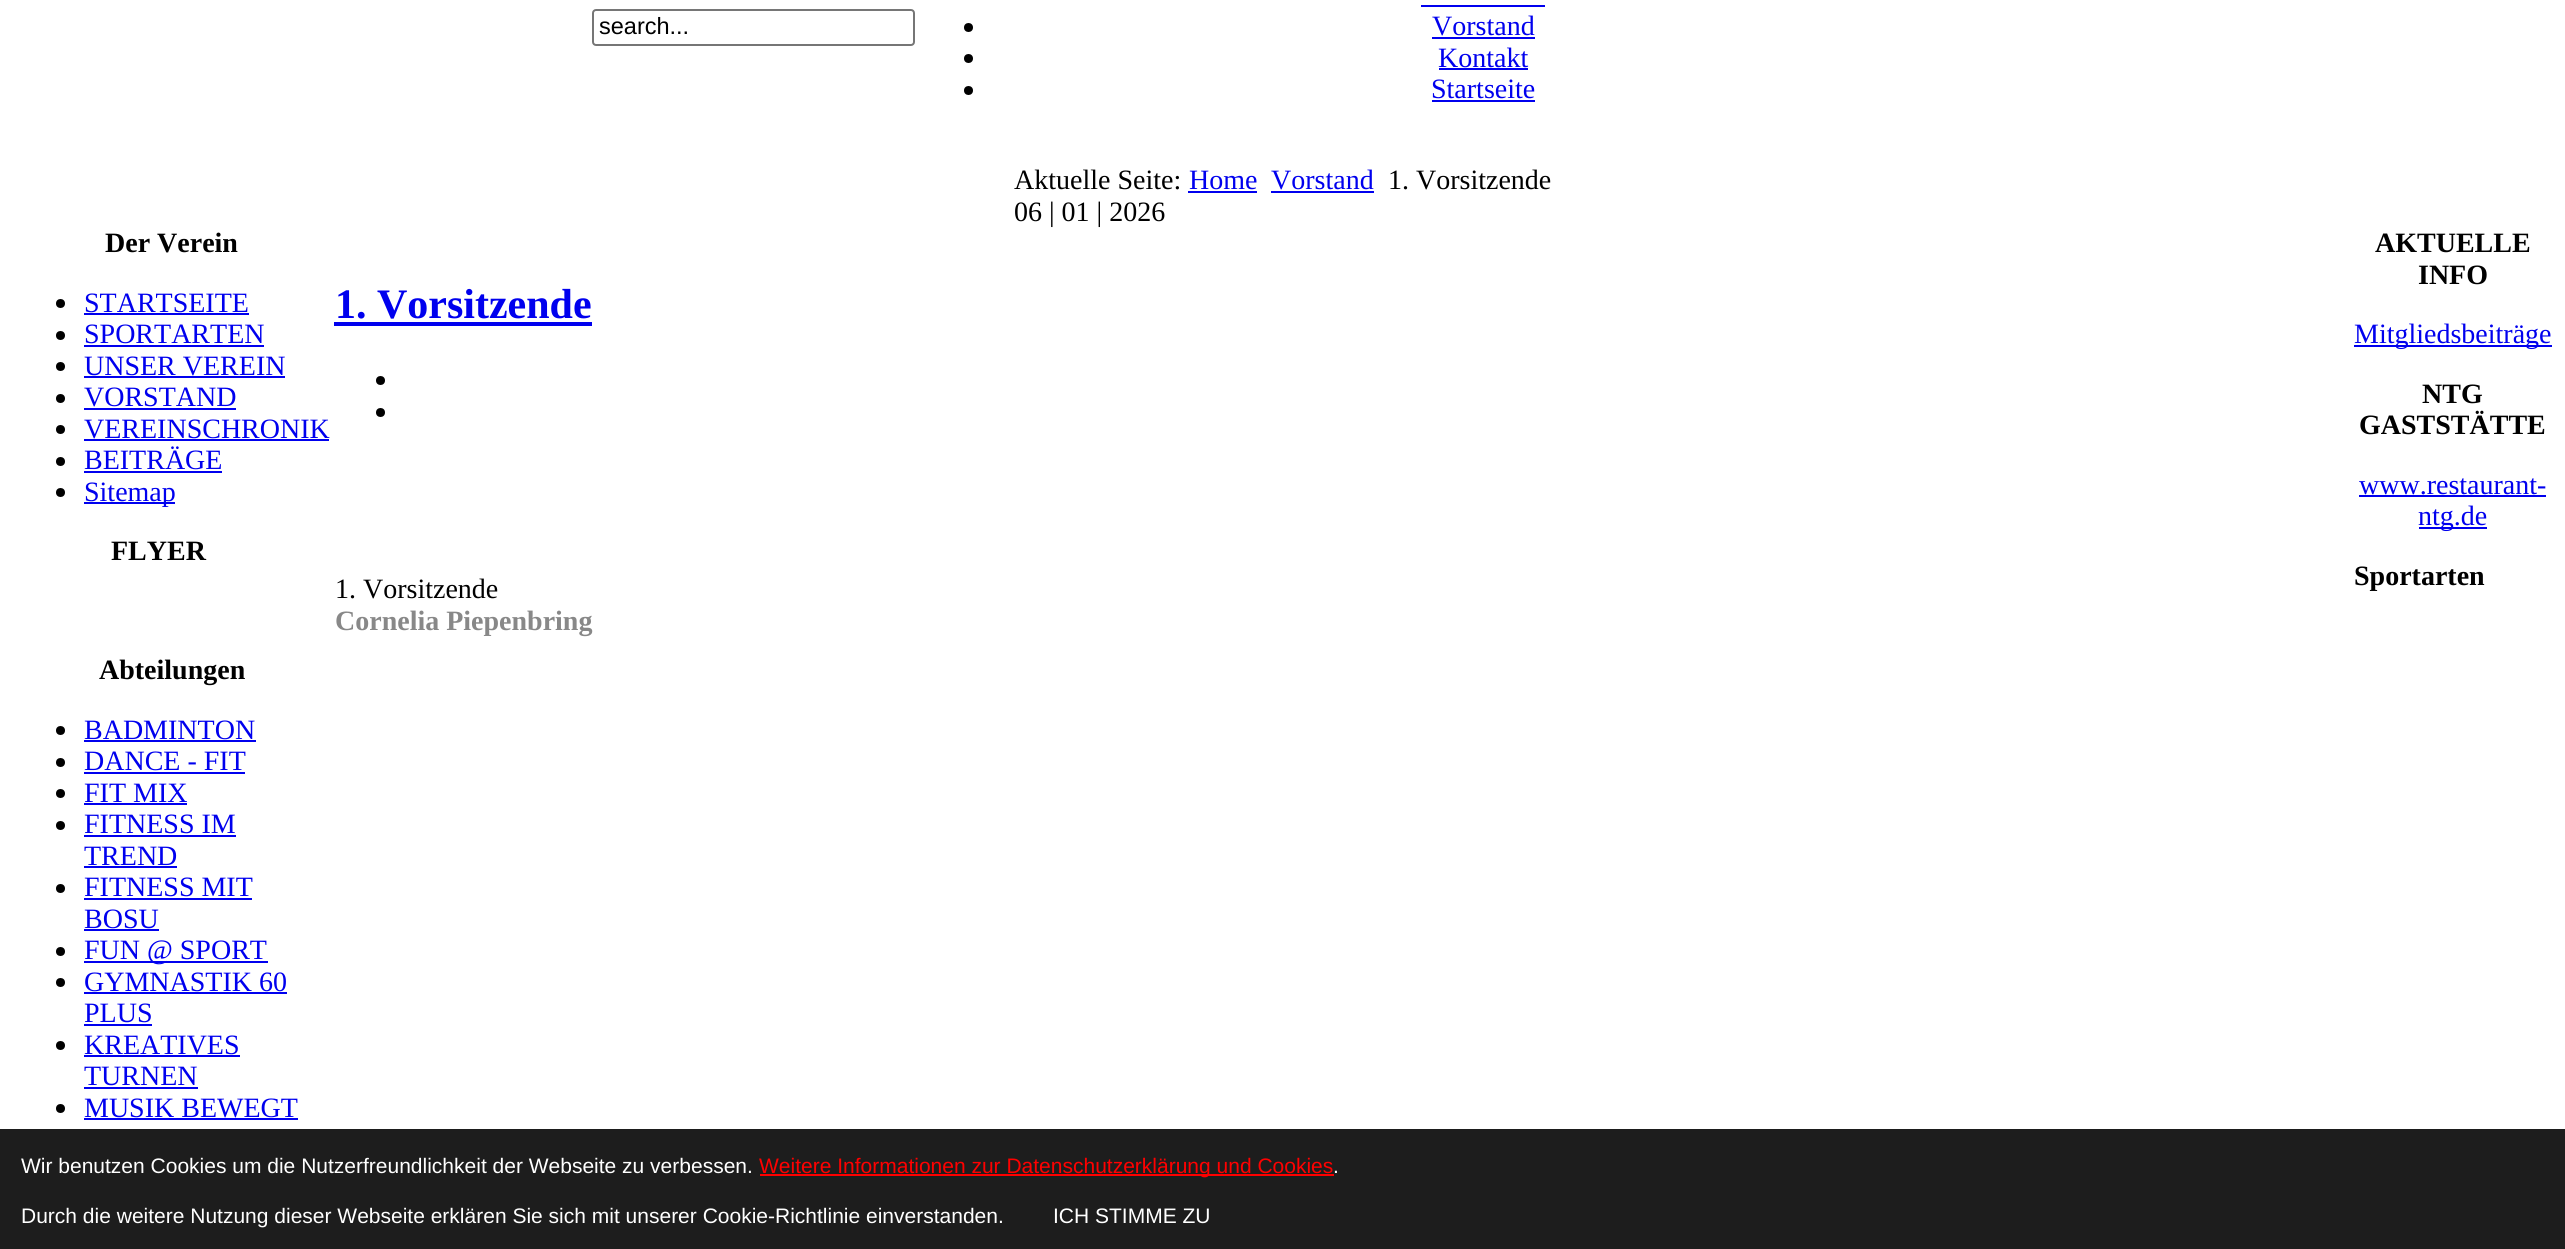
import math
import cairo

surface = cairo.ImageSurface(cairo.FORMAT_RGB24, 2565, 1249)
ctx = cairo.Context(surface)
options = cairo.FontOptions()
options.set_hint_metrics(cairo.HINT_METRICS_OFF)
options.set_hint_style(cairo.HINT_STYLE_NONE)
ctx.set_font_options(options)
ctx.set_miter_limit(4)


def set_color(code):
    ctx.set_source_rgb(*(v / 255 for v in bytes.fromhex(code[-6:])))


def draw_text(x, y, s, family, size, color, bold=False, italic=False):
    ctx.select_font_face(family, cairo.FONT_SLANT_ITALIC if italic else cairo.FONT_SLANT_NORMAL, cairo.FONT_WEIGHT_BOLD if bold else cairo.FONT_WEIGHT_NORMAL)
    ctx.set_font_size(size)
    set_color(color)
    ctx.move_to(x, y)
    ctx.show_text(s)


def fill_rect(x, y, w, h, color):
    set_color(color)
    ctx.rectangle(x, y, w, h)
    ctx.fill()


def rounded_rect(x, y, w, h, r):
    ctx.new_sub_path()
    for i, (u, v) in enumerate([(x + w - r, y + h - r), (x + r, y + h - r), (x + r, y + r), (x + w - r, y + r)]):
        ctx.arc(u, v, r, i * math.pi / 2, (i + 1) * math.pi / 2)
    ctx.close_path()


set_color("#ffffff")
ctx.paint()
rounded_rect(593, 10, 321, 35, 3)
set_color("#767676")
ctx.stroke()
draw_text(599, 34, "search...", "Liberation Sans", 23.5, "#000000")
fill_rect(1421, 5, 124, 2, "#0000ee")
set_color("#000000")
ctx.new_path()
ctx.arc(968.5, 27.5, 4.5, 0, 2 * math.pi)
ctx.fill()
draw_text(1432, 35, "Vorstand", "Liberation Serif", 28, "#0000ee")
fill_rect(1432, 37, 103, 2, "#0000ee")
set_color("#000000")
ctx.new_path()
ctx.arc(968.5, 58.5, 4.5, 0, 2 * math.pi)
ctx.fill()
draw_text(1438, 67, "Kontakt", "Liberation Serif", 28, "#0000ee")
fill_rect(1439, 68, 89, 2, "#0000ee")
set_color("#000000")
ctx.new_path()
ctx.arc(968.5, 90.5, 4.5, 0, 2 * math.pi)
ctx.fill()
draw_text(1431, 98, "Startseite", "Liberation Serif", 28, "#0000ee")
fill_rect(1432, 100, 103, 2, "#0000ee")
draw_text(1014, 189, "Aktuelle Seite:", "Liberation Serif", 28, "#000000")
draw_text(1189, 189, "Home", "Liberation Serif", 28, "#0000ee")
fill_rect(1188, 191, 69, 2, "#0000ee")
draw_text(1271, 189, "Vorstand", "Liberation Serif", 28, "#0000ee")
fill_rect(1271, 191, 103, 2, "#0000ee")
draw_text(1388, 189, "1. Vorsitzende", "Liberation Serif", 28, "#000000")
draw_text(1014, 221, "06 | 01 | 2026", "Liberation Serif", 28, "#000000")
draw_text(105, 252, "Der Verein", "Liberation Serif", 28, "#000000", bold=True)
ctx.new_path()
ctx.arc(60.5, 303.5, 4.5, 0, 2 * math.pi)
ctx.fill()
draw_text(84, 312, "STARTSEITE", "Liberation Serif", 28, "#0000ee")
fill_rect(84, 313, 165, 2, "#0000ee")
set_color("#000000")
ctx.new_path()
ctx.arc(60.5, 335.5, 4.5, 0, 2 * math.pi)
ctx.fill()
draw_text(84, 343, "SPORTARTEN", "Liberation Serif", 28, "#0000ee")
fill_rect(84, 345, 180, 2, "#0000ee")
set_color("#000000")
ctx.new_path()
ctx.arc(60.5, 366.5, 4.5, 0, 2 * math.pi)
ctx.fill()
draw_text(84, 375, "UNSER VEREIN", "Liberation Serif", 28, "#0000ee")
fill_rect(84, 376, 201, 2, "#0000ee")
set_color("#000000")
ctx.new_path()
ctx.arc(60.5, 398.5, 4.5, 0, 2 * math.pi)
ctx.fill()
draw_text(84, 406, "VORSTAND", "Liberation Serif", 28, "#0000ee")
fill_rect(84, 408, 152, 2, "#0000ee")
set_color("#000000")
ctx.new_path()
ctx.arc(60.5, 429.5, 4.5, 0, 2 * math.pi)
ctx.fill()
draw_text(84, 438, "VEREINSCHRONIK", "Liberation Serif", 28, "#0000ee")
fill_rect(84, 439, 245, 2, "#0000ee")
set_color("#000000")
ctx.new_path()
ctx.arc(60.5, 461.5, 4.5, 0, 2 * math.pi)
ctx.fill()
draw_text(84, 469, "BEITRÄGE", "Liberation Serif", 28, "#0000ee")
fill_rect(84, 471, 138, 2, "#0000ee")
set_color("#000000")
ctx.new_path()
ctx.arc(60.5, 492.5, 4.5, 0, 2 * math.pi)
ctx.fill()
fill_rect(84, 502, 91, 2, "#0000ee")
draw_text(84, 501, "Sitemap", "Liberation Serif", 28, "#0000ee")
draw_text(111, 560, "FLYER", "Liberation Serif", 28, "#000000", bold=True)
draw_text(99, 679, "Abteilungen", "Liberation Serif", 28, "#000000", bold=True)
ctx.new_path()
ctx.arc(60.5, 730.5, 4.5, 0, 2 * math.pi)
ctx.fill()
draw_text(84, 739, "BADMINTON", "Liberation Serif", 28, "#0000ee")
fill_rect(84, 740, 172, 2, "#0000ee")
set_color("#000000")
ctx.new_path()
ctx.arc(60.5, 762.5, 4.5, 0, 2 * math.pi)
ctx.fill()
draw_text(84, 770, "DANCE - FIT", "Liberation Serif", 28, "#0000ee")
fill_rect(84, 772, 161, 2, "#0000ee")
set_color("#000000")
ctx.new_path()
ctx.arc(60.5, 793.5, 4.5, 0, 2 * math.pi)
ctx.fill()
draw_text(84, 802, "FIT MIX", "Liberation Serif", 28, "#0000ee")
fill_rect(84, 803, 103, 2, "#0000ee")
set_color("#000000")
ctx.new_path()
ctx.arc(60.5, 825.5, 4.5, 0, 2 * math.pi)
ctx.fill()
draw_text(84, 833, "FITNESS IM", "Liberation Serif", 28, "#0000ee")
fill_rect(84, 835, 152, 2, "#0000ee")
draw_text(84, 865, "TREND", "Liberation Serif", 28, "#0000ee")
fill_rect(84, 866, 93, 2, "#0000ee")
set_color("#000000")
ctx.new_path()
ctx.arc(60.5, 888.5, 4.5, 0, 2 * math.pi)
ctx.fill()
draw_text(84, 896, "FITNESS MIT", "Liberation Serif", 28, "#0000ee")
fill_rect(84, 898, 168, 2, "#0000ee")
draw_text(84, 928, "BOSU", "Liberation Serif", 28, "#0000ee")
fill_rect(84, 929, 75, 2, "#0000ee")
set_color("#000000")
ctx.new_path()
ctx.arc(60.5, 951.5, 4.5, 0, 2 * math.pi)
ctx.fill()
fill_rect(84, 961, 184, 2, "#0000ee")
draw_text(84, 959, "FUN @ SPORT", "Liberation Serif", 28, "#0000ee")
set_color("#000000")
ctx.new_path()
ctx.arc(60.5, 982.5, 4.5, 0, 2 * math.pi)
ctx.fill()
draw_text(84, 991, "GYMNASTIK 60", "Liberation Serif", 28, "#0000ee")
fill_rect(84, 992, 203, 2, "#0000ee")
draw_text(84, 1022, "PLUS", "Liberation Serif", 28, "#0000ee")
fill_rect(84, 1024, 68, 2, "#0000ee")
set_color("#000000")
ctx.new_path()
ctx.arc(60.5, 1045.5, 4.5, 0, 2 * math.pi)
ctx.fill()
draw_text(84, 1054, "KREATIVES", "Liberation Serif", 28, "#0000ee")
fill_rect(84, 1055, 156, 2, "#0000ee")
draw_text(84, 1085, "TURNEN", "Liberation Serif", 28, "#0000ee")
fill_rect(84, 1087, 114, 2, "#0000ee")
set_color("#000000")
ctx.new_path()
ctx.arc(60.5, 1108.5, 4.5, 0, 2 * math.pi)
ctx.fill()
draw_text(84, 1117, "MUSIK BEWEGT", "Liberation Serif", 28, "#0000ee")
fill_rect(84, 1118, 214, 2, "#0000ee")
draw_text(335, 318, "1. Vorsitzende", "Liberation Serif", 42, "#0000ee", bold=True)
fill_rect(334, 322, 258, 4, "#0000ee")
set_color("#000000")
ctx.new_path()
ctx.arc(380.5, 380.5, 4.5, 0, 2 * math.pi)
ctx.fill()
ctx.arc(380.5, 412.5, 4.5, 0, 2 * math.pi)
ctx.fill()
draw_text(335, 598, "1. Vorsitzende", "Liberation Serif", 28, "#000000")
draw_text(335, 630, "Cornelia Piepenbring", "Liberation Serif", 28, "#888888", bold=True)
draw_text(2375, 252, "AKTUELLE", "Liberation Serif", 28, "#000000", bold=True)
draw_text(2418, 284, "INFO", "Liberation Serif", 28, "#000000", bold=True)
fill_rect(2354, 345, 198, 2, "#0000ee")
draw_text(2354, 343, "Mitgliedsbeiträge", "Liberation Serif", 28, "#0000ee")
draw_text(2422, 403, "NTG", "Liberation Serif", 28, "#000000", bold=True)
draw_text(2359, 434, "GASTSTÄTTE", "Liberation Serif", 28, "#000000", bold=True)
draw_text(2359, 494, "www.restaurant-", "Liberation Serif", 28, "#0000ee")
fill_rect(2359, 495, 187, 2, "#0000ee")
fill_rect(2419, 527, 68, 2, "#0000ee")
draw_text(2418, 525, "ntg.de", "Liberation Serif", 28, "#0000ee")
draw_text(2354, 585, "Sportarten", "Liberation Serif", 28, "#000000", bold=True)
fill_rect(0, 1129, 2565, 120, "#1d1d1d")
draw_text(21, 1173, "Wir benutzen Cookies um die Nutzerfreundlichkeit der Webseite zu verbessen.", "Liberation Sans", 21, "#ffffff")
fill_rect(760, 1174, 574, 2, "#ff0000")
draw_text(759, 1173, "Weitere Informationen zur Datenschutzerklärung und Cookies", "Liberation Sans", 21, "#ff0000")
draw_text(1333, 1173, ".", "Liberation Sans", 21, "#ffffff")
draw_text(21, 1223, "Durch die weitere Nutzung dieser Webseite erklären Sie sich mit unserer Cookie-Richtlinie einverstanden.", "Liberation Sans", 21, "#ffffff")
draw_text(1053, 1223, "ICH STIMME ZU", "Liberation Sans", 21, "#ffffff")
surface.write_to_png("output.png")
